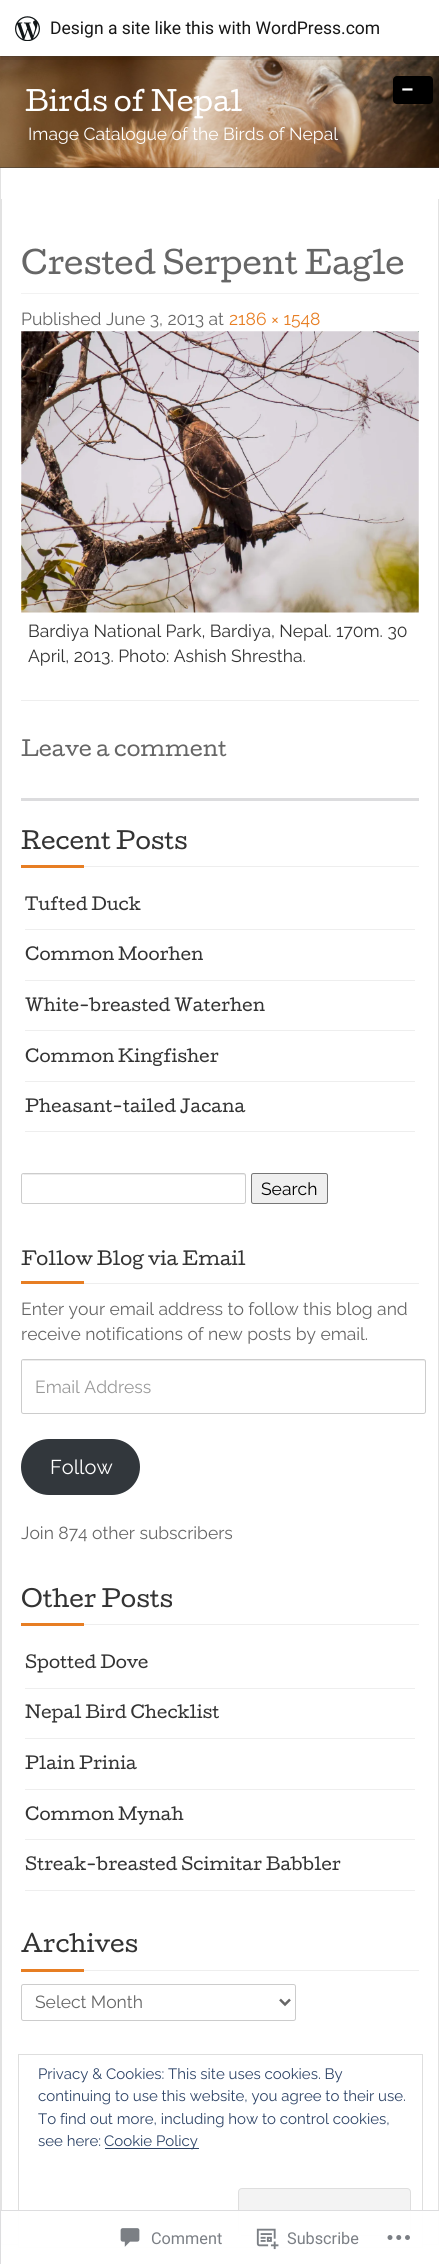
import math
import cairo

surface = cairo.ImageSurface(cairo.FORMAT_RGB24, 439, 2264)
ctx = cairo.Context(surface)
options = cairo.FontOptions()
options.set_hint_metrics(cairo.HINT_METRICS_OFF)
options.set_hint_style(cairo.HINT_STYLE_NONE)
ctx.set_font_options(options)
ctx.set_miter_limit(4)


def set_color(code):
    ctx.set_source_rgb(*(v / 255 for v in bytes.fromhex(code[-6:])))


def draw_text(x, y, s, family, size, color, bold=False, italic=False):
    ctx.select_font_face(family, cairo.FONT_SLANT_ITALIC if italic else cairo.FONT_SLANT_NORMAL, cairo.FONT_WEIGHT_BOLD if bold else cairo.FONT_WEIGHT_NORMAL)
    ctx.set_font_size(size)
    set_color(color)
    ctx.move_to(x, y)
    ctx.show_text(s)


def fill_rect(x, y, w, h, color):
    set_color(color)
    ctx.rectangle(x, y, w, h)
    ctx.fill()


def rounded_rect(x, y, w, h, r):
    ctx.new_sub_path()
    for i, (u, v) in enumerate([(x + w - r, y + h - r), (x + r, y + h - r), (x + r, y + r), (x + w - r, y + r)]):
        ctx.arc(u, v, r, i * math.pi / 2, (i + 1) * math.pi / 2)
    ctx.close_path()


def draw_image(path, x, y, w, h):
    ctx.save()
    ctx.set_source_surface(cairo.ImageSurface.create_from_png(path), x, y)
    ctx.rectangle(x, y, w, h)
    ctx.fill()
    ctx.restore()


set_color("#373737")
ctx.paint()
draw_image("assets/img2.png", 0, 56, 439, 112)
ctx.set_source_rgba(0, 0, 0, 0.08)
ctx.new_path()
ctx.move_to(1, 56)
ctx.line_to(1, 60)
ctx.line_to(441, 60)
ctx.line_to(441, 4)
ctx.line_to(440, 4)
ctx.line_to(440, 56)
ctx.close_path()
ctx.fill()
fill_rect(0, 0, 439, 56, "#ffffff")
draw_image("assets/img1.png", 15, 16, 25, 25)
draw_text(50, 34, "Design a site like this with WordPress.com", "Roboto", 17.5, "#171717")
draw_text(25, 111, "Birds of Nepal", "Cutive", 26.25, "#ffffff")
draw_text(28, 140, "Image Catalogue of the Birds of Nepal", "Raleway", 17.5, "#ffffff")
set_color("#000000")
rounded_rect(393, 76, 40, 28, 4)
ctx.fill()
draw_text(400, 99, "-", "Raleway", 35, "#ffffff")
fill_rect(1, 168, 438, 2096, "#ffffff")
fill_rect(0, 168, 1, 2096, "#e2e2e2")
fill_rect(438, 199, 1, 2046, "#e2e2e2")
fill_rect(1, 2244, 438, 1, "#e2e2e2")
fill_rect(1, 199, 1, 2046, "#e2e2e2")
fill_rect(21, 293, 398, 1, "#f2f2f2")
draw_text(21, 274, "Crested Serpent Eagle", "Cutive", 30, "#666666")
draw_text(21, 325, "Published June 3, 2013 at", "Raleway", 17.5, "#666666")
draw_text(229, 325, "2186 × 1548", "Raleway", 17.5, "#e77e23")
draw_image("assets/img3.png", 21, 331, 398, 282)
draw_text(28, 637, "Bardiya National Park, Bardiya, Nepal. 170m. 30", "Raleway", 17.5, "#333333")
draw_text(28, 662, "April, 2013. Photo: Ashish Shrestha.", "Raleway", 17.5, "#333333")
fill_rect(21, 700, 398, 1, "#eeeeee")
draw_text(21, 756, "Leave a comment", "Cutive", 20, "#666666")
fill_rect(21, 798, 398, 3, "#dcdcde")
fill_rect(84, 866, 335, 1, "#eeeeee")
draw_text(21, 849, "Recent Posts", "Cutive", 22.5, "#333333")
fill_rect(21, 865, 63, 3, "#e77e23")
fill_rect(25, 929, 390, 1, "#eeeeee")
draw_text(25, 910, "Tufted Duck", "Cutive", 16.25, "#333333")
fill_rect(25, 980, 390, 1, "#eeeeee")
draw_text(25, 960, "Common Moorhen", "Cutive", 16.25, "#333333")
fill_rect(25, 1030, 390, 1, "#eeeeee")
draw_text(25, 1011, "White-breasted Waterhen", "Cutive", 16.25, "#333333")
fill_rect(25, 1081, 390, 1, "#eeeeee")
draw_text(25, 1062, "Common Kingfisher", "Cutive", 16.25, "#333333")
fill_rect(25, 1131, 390, 1, "#eeeeee")
draw_text(25, 1112, "Pheasant-tailed Jacana", "Cutive", 16.25, "#333333")
set_color("#ececec")
ctx.new_path()
ctx.move_to(24, 1175)
ctx.line_to(244, 1175)
ctx.line_to(245, 1176)
ctx.line_to(245, 1174)
ctx.line_to(24, 1174)
ctx.line_to(23, 1175)
ctx.close_path()
ctx.fill()
rounded_rect(21.5, 1173.5, 224, 30, 2)
set_color("#cccccc")
ctx.set_line_width(1)
ctx.stroke()
set_color("#efefef")
rounded_rect(251.5, 1173.5, 76, 30, 2)
ctx.fill_preserve()
set_color("#767676")
ctx.stroke()
draw_text(261, 1195, "Search", "Raleway", 17.5, "#000000")
fill_rect(84, 1283, 335, 1, "#eeeeee")
draw_text(21, 1265, "Follow Blog via Email", "Cutive", 17.5, "#333333")
fill_rect(21, 1281, 63, 3, "#e77e23")
draw_text(21, 1315, "Enter your email address to follow this blog and", "Raleway", 17.5, "#666666")
draw_text(21, 1340, "receive notifications of new posts by email.", "Raleway", 17.5, "#666666")
set_color("#ececec")
ctx.new_path()
ctx.move_to(24, 1361)
ctx.line_to(424, 1361)
ctx.line_to(425, 1362)
ctx.curve_to(425, 1361, 425, 1360, 424, 1360)
ctx.line_to(24, 1360)
ctx.curve_to(23, 1360, 23, 1361, 23, 1361)
ctx.close_path()
ctx.fill()
rounded_rect(21.5, 1359.5, 404, 54, 2)
set_color("#cccccc")
ctx.stroke()
draw_text(35, 1393, "Email Address", "Raleway", 17.5, "#999999")
set_color("#32373c")
rounded_rect(21, 1439, 119, 56, 28)
ctx.fill()
draw_text(50, 1474, "Follow", "Raleway", 20, "#ffffff")
draw_text(21, 1539, "Join 874 other subscribers", "Raleway", 17.5, "#666666")
fill_rect(84, 1624, 335, 1, "#eeeeee")
draw_text(21, 1607, "Other Posts", "Cutive", 22.5, "#333333")
fill_rect(21, 1623, 63, 3, "#e77e23")
fill_rect(25, 1688, 390, 1, "#eeeeee")
draw_text(25, 1668, "Spotted Dove", "Cutive", 16.25, "#333333")
fill_rect(25, 1738, 390, 1, "#eeeeee")
draw_text(25, 1718, "Nepal Bird Checklist", "Cutive", 16.25, "#333333")
fill_rect(25, 1789, 390, 1, "#eeeeee")
draw_text(25, 1769, "Plain Prinia", "Cutive", 16.25, "#333333")
fill_rect(25, 1839, 390, 1, "#eeeeee")
draw_text(25, 1820, "Common Mynah", "Cutive", 16.25, "#333333")
fill_rect(25, 1890, 390, 1, "#eeeeee")
draw_text(25, 1870, "Streak-breasted Scimitar Babbler", "Cutive", 16.25, "#333333")
fill_rect(84, 1970, 335, 1, "#eeeeee")
draw_text(21, 1952, "Archives", "Cutive", 22.5, "#333333")
fill_rect(21, 1969, 63, 3, "#e77e23")
rounded_rect(21.5, 1984.5, 274, 36, 2)
set_color("#cccccc")
ctx.stroke()
ctx.new_path()
ctx.move_to(280, 1999.5)
ctx.line_to(285, 2004.5)
ctx.line_to(290, 1999.5)
set_color("#666666")
ctx.set_line_width(2.5)
ctx.stroke()
draw_text(35, 2008, "Select Month", "Raleway", 17.5, "#666666")
fill_rect(19, 2244, 403, 1, "#ffffff")
ctx.rectangle(18.5, 2054.5, 404, 193)
set_color("#dedede")
ctx.set_line_width(1)
ctx.stroke()
draw_text(38, 2079, "Privacy & Cookies: This site uses cookies. By", "Raleway", 15, "#2e4467")
draw_text(38, 2101, "continuing to use this website, you agree to their use.", "Raleway", 15, "#2e4467")
draw_text(38, 2124, "To find out more, including how to control cookies,", "Raleway", 15, "#2e4467")
draw_text(38, 2146, "see here:", "Raleway", 15, "#2e4467")
fill_rect(105, 2148, 94, 1, "#2e4467")
draw_text(104, 2146, "Cookie Policy", "Raleway", 15, "#2e4467")
set_color("#f3f3f3")
rounded_rect(238.5, 2188.5, 172, 47, 3.5)
ctx.fill_preserve()
set_color("#dedede")
ctx.stroke()
ctx.set_source_rgba(1, 1, 1, 0.98)
ctx.rectangle(0, 2210, 439, 54)
ctx.fill()
ctx.rectangle(0.5, 2210.5, 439, 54)
ctx.set_source_rgba(0.863, 0.863, 0.871, 0.98)
ctx.stroke()
draw_image("assets/img4.png", 120, 2228, 20, 19)
draw_text(151, 2244, "Comment", "Roboto", 16.25, "#7b7f85")
draw_image("assets/img5.png", 256, 2228, 23, 22)
draw_text(287, 2244, "Subscribe", "Roboto", 16.25, "#7b7f85")
draw_image("assets/img6.png", 387, 2235, 23, 5)
surface.write_to_png("output.png")
